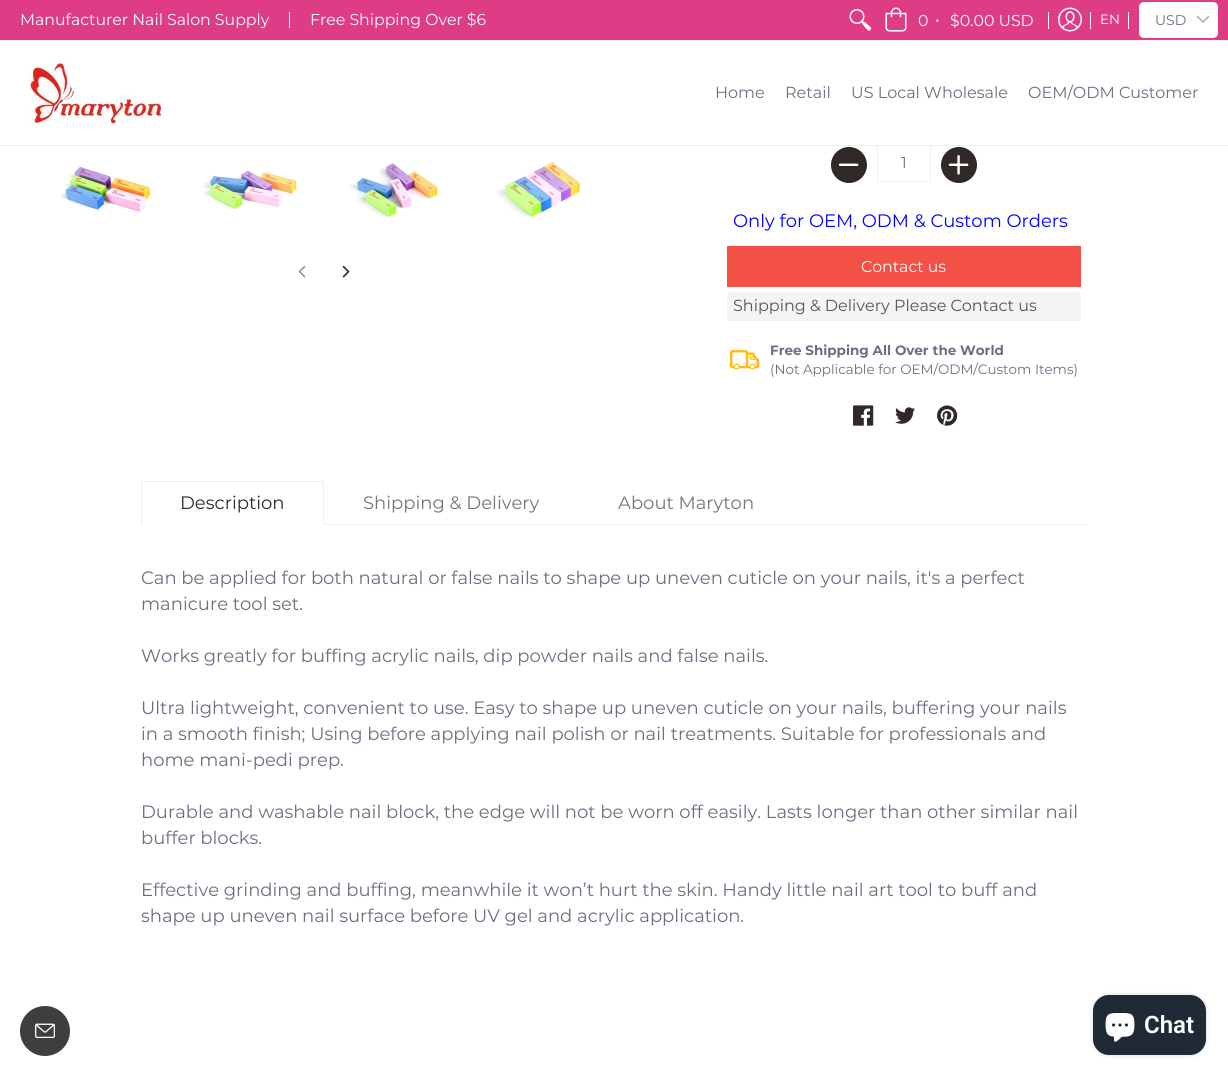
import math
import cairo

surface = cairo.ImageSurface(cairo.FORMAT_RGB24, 1228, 1076)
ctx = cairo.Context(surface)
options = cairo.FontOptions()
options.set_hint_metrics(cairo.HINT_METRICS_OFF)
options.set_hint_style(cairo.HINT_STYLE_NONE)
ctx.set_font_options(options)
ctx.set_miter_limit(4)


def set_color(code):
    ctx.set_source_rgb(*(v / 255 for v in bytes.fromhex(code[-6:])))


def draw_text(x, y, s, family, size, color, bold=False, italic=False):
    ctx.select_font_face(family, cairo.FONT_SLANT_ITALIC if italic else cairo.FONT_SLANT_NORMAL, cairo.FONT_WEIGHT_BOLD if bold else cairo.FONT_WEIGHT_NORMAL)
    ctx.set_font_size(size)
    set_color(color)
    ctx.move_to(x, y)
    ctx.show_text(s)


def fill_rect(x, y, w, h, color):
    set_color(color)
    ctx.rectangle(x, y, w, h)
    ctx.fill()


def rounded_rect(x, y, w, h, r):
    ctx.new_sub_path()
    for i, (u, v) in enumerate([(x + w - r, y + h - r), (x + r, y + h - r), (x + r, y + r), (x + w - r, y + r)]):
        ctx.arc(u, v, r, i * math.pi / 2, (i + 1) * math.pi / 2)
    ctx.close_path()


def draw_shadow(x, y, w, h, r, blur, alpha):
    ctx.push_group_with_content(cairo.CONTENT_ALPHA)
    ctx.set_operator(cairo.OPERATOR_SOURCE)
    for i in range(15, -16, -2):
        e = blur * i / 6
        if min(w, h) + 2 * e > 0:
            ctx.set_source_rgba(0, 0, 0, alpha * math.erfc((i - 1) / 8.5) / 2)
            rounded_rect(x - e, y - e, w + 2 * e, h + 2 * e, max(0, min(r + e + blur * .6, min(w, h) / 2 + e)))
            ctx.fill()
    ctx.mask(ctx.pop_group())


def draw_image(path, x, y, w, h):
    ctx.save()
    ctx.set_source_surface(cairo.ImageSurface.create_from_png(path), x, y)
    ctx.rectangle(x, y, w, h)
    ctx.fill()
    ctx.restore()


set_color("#ffffff")
ctx.paint()
ctx.rectangle(877.5, 142.5, 53, 39)
set_color("#edeef4")
ctx.set_line_width(1)
ctx.stroke()
fill_rect(877, 142, 54, 3, "#ffffff")
fill_rect(0, 0, 1228, 40, "#de3c84")
fill_rect(0, 40, 1228, 1, "#edeef4")
draw_text(20, 25, "Manufacturer Nail Salon Supply", "Montserrat", 15.75, "#ffffff")
fill_rect(289, 12, 1, 16, "#ffffff")
draw_text(310, 25, "Free Shipping Over $6", "Montserrat", 15.75, "#ffffff")
draw_image("assets/img1.png", 849, 9, 23, 22)
draw_image("assets/img2.png", 885, 7, 22, 25)
draw_text(918, 26, "0", "Montserrat", 15.75, "#ffffff")
draw_text(935, 25, "•", "Montserrat", 15.75, "#ffffff")
draw_text(950, 26, "$0.00 USD", "Montserrat", 15.75, "#ffffff")
fill_rect(1048, 12, 1, 17, "#ffffff")
draw_image("assets/img3.png", 1058, 7, 24, 25)
fill_rect(1090, 12, 1, 17, "#ffffff")
draw_text(1100, 24, "EN", "Montserrat", 13.5, "#ffffff")
fill_rect(1128, 12, 1, 17, "#ffffff")
rounded_rect(1139, 2, 79, 36, 5)
ctx.fill()
draw_text(1155, 25, "USD", "Montserrat", 14, "#6b6f81")
ctx.new_path()
ctx.move_to(1197.5, 16.5)
ctx.line_to(1203, 22)
ctx.line_to(1208.5, 16.5)
set_color("#b7b7b7")
ctx.set_line_width(1.8)
ctx.set_line_cap(cairo.LINE_CAP_ROUND)
ctx.set_line_join(cairo.LINE_JOIN_ROUND)
ctx.stroke()
fill_rect(0, 145, 1228, 1, "#edeef4")
draw_image("assets/img4.png", 28, 59, 136, 67)
draw_text(715, 98, "Home", "Montserrat", 16, "#6b6f81")
draw_text(785, 98, "Retail", "Montserrat", 16, "#6b6f81")
draw_text(851, 98, "US Local Wholesale", "Montserrat", 16, "#6b6f81")
draw_text(1028, 98, "OEM/ODM Customer", "Montserrat", 16, "#6b6f81")
draw_image("assets/img5.png", 60, 166, 93, 46)
draw_image("assets/img6.png", 202, 170, 96, 41)
draw_image("assets/img7.png", 349, 163, 89, 55)
draw_image("assets/img8.png", 496, 161, 85, 57)
draw_image("assets/img9.png", 298, 265, 8, 13)
draw_image("assets/img10.png", 342, 265, 8, 13)
set_color("#312828")
ctx.arc(849, 165, 18, 0, 2 * math.pi)
ctx.fill()
draw_image("assets/img11.png", 838, 163, 21, 3)
draw_text(901, 168, "1", "Montserrat", 15.75, "#6b6f81")
set_color("#312828")
ctx.new_path()
ctx.arc(959, 165, 18, 0, 2 * math.pi)
ctx.fill()
draw_image("assets/img12.png", 948, 155, 21, 20)
draw_text(733, 227, "Only for OEM, ODM & Custom Orders", "Montserrat", 18, "#0300ff")
fill_rect(727, 246, 354, 41, "#f35046")
draw_text(861, 272, "Contact us", "Montserrat", 15.75, "#ffffff")
set_color("#f5f3f3")
rounded_rect(727, 292, 354, 29, 2)
ctx.fill()
draw_text(733, 311, "Shipping & Delivery Please Contact us", "Montserrat", 16, "#555555")
draw_image("assets/img13.png", 730, 350, 30, 20)
draw_text(770, 355, "Free Shipping All Over the World", "Montserrat", 13.5, "#6b6f81", bold=True)
draw_text(770, 374, "(Not Applicable for OEM/ODM/Custom Items)", "Montserrat", 13.5, "#6b6f81")
draw_image("assets/img14.png", 853, 405, 21, 21)
draw_image("assets/img15.png", 895, 407, 21, 17)
draw_image("assets/img16.png", 937, 405, 21, 21)
fill_rect(141, 481, 183, 1, "#edeef4")
fill_rect(323, 481, 1, 44, "#edeef4")
fill_rect(323, 524, 1, 1, "#ffffff")
fill_rect(141, 481, 1, 44, "#edeef4")
draw_text(180, 509, "Description", "Montserrat", 18, "#312828")
draw_text(363, 509, "Shipping & Delivery", "Montserrat", 18, "#767676")
draw_text(618, 509, "About Maryton", "Montserrat", 18, "#767676")
fill_rect(324, 524, 763, 1, "#edeef4")
draw_text(141, 584, "Can be applied for both natural or false nails to shape up uneven cuticle on your nails, it's a perfect", "Montserrat", 18, "#6b6f81")
draw_text(141, 610, "manicure tool set.", "Montserrat", 18, "#6b6f81")
draw_text(141, 662, "Works greatly for buffing acrylic nails, dip powder nails and false nails.", "Montserrat", 18, "#6b6f81")
draw_text(141, 714, "Ultra lightweight, convenient to use. Easy to shape up uneven cuticle on your nails, buffering your nails", "Montserrat", 18, "#6b6f81")
draw_text(141, 740, "in a smooth finish; Using before applying nail polish or nail treatments. Suitable for professionals and", "Montserrat", 18, "#6b6f81")
draw_text(141, 766, "home mani-pedi prep.", "Montserrat", 18, "#6b6f81")
draw_text(141, 818, "Durable and washable nail block, the edge will not be worn off easily. Lasts longer than other similar nail", "Montserrat", 18, "#6b6f81")
draw_text(141, 844, "buffer blocks.", "Montserrat", 18, "#6b6f81")
draw_text(141, 896, "Effective grinding and buffing, meanwhile it won’t hurt the skin. Handy little nail art tool to buff and", "Montserrat", 18, "#6b6f81")
draw_text(141, 922, "shape up uneven nail surface before UV gel and acrylic application.", "Montserrat", 18, "#6b6f81")
set_color("#3e3e3e")
ctx.new_path()
ctx.arc(45, 1031, 25, 0, 2 * math.pi)
ctx.fill()
draw_image("assets/img17.png", 35, 1023, 20, 15)
set_color("#000000")
draw_shadow(1093, 995, 113, 60, 16, 2.5, 0.15)
set_color("#202a36")
rounded_rect(1093, 995, 113, 60, 16)
ctx.fill()
draw_image("assets/img18.png", 1105, 1013, 30, 29)
draw_text(1144, 1033, "Chat", "Roboto SemiBold", 24, "#ffffff")
surface.write_to_png("output.png")
